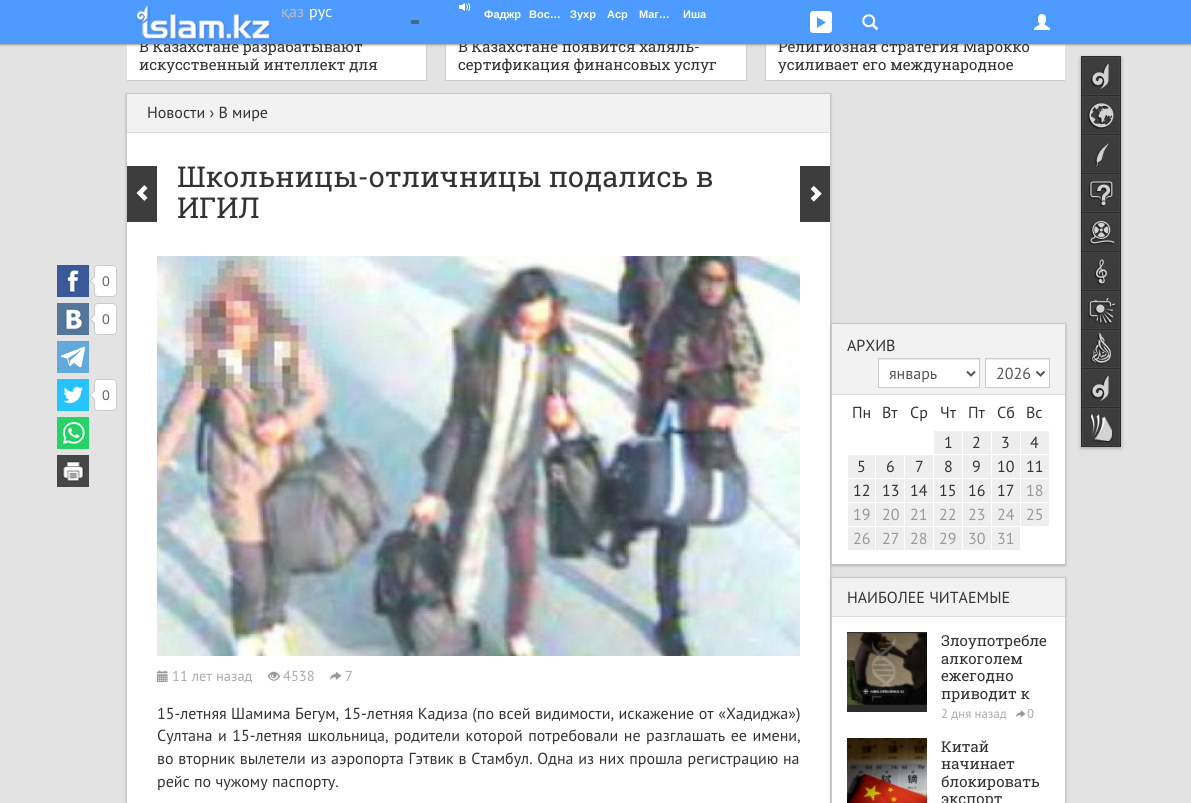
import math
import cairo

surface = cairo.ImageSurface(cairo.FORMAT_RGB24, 1191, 803)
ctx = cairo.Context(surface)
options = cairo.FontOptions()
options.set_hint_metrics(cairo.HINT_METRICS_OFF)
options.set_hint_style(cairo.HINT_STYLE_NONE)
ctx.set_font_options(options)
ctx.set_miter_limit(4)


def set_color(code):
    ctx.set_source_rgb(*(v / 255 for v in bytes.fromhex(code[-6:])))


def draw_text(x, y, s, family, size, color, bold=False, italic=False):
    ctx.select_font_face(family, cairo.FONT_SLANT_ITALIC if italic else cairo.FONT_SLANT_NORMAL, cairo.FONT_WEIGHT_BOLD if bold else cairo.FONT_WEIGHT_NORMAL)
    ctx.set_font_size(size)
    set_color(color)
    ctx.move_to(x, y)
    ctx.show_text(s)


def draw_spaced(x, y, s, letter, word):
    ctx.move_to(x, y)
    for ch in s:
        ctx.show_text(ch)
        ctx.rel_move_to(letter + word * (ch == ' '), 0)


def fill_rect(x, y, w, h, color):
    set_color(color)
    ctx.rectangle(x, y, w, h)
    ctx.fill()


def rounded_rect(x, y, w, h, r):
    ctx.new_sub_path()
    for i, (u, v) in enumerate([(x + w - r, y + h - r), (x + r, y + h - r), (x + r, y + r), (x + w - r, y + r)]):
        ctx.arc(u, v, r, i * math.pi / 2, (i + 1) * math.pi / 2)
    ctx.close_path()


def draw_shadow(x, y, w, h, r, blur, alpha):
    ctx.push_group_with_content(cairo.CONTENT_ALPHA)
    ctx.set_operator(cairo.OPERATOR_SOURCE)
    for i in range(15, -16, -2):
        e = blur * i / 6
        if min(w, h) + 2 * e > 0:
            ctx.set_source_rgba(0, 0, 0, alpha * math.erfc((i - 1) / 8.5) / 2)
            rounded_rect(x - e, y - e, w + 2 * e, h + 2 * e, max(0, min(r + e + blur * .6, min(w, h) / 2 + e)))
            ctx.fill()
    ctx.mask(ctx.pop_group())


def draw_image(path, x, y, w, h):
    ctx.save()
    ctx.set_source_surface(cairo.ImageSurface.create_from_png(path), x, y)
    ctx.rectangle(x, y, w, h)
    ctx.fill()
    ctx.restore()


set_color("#e3e3e3")
ctx.paint()
ctx.save()
ctx.rectangle(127, 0, 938, 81)
ctx.clip()
set_color("#b3b3b3")
draw_shadow(127, -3, 299, 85, 0, 1, 1)
ctx.restore()
fill_rect(127, 44, 299, 36, "#ffffff")
ctx.save()
ctx.rectangle(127, 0, 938, 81)
ctx.clip()
set_color("#b3b3b3")
draw_shadow(446, -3, 300, 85, 0, 1, 1)
ctx.restore()
fill_rect(446, 44, 300, 36, "#ffffff")
ctx.save()
ctx.rectangle(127, 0, 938, 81)
ctx.clip()
set_color("#b3b3b3")
draw_shadow(766, -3, 299, 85, 0, 1, 1)
ctx.restore()
fill_rect(766, 44, 299, 36, "#ffffff")
set_color("#999999")
draw_shadow(0, 1, 1191, 44, 0, 1, 1)
draw_text(139, 52, "В Казахстане разрабатывают", "Roboto Slab", 15, "#333333")
draw_text(458, 52, "В Казахстане появится халяль-", "Roboto Slab", 15, "#333333")
draw_text(778, 52, "Религиозная стратегия Марокко", "Roboto Slab", 15, "#333333")
fill_rect(0, 0, 1191, 44, "#4e9bff")
draw_image("assets/img1.png", 136, 5, 135, 36)
draw_text(281, 17, "қаз", "PT Sans", 16, "#bbbbbb")
draw_text(309, 17, "рус", "PT Sans", 16, "#ffffff")
draw_image("assets/img2.png", 459, 2, 12, 9)
draw_text(484, 18, "Фаджр", "Liberation Sans", 11, "#ffffff", bold=True)
draw_text(529, 18, "Вос…", "Liberation Sans", 11, "#ffffff", bold=True)
draw_text(570, 18, "Зухр", "Liberation Sans", 11, "#ffffff", bold=True)
draw_text(607, 18, "Аср", "Liberation Sans", 11, "#ffffff", bold=True)
draw_text(639, 18, "Маг…", "Liberation Sans", 11, "#ffffff", bold=True)
draw_text(683, 18, "Иша", "Liberation Sans", 11, "#ffffff", bold=True)
fill_rect(411, 20, 8, 4, "#45688e")
set_color("#ffffff")
rounded_rect(810, 11, 22, 22, 3)
ctx.fill()
set_color("#4e9bff")
ctx.new_path()
ctx.move_to(817, 28)
ctx.line_to(826, 22.5)
ctx.line_to(817, 17)
ctx.close_path()
ctx.fill()
draw_image("assets/img3.png", 862, 14, 17, 17)
draw_image("assets/img4.png", 1034, 14, 16, 16)
draw_text(139, 70, "искусственный интеллект для", "Roboto Slab", 15, "#333333")
fill_rect(127, 80, 299, 1, "#cccccc")
ctx.save()
ctx.rectangle(458, 38, 276, 35)
ctx.clip()
draw_text(458, 70, "сертификация финансовых услуг", "Roboto Slab", 15, "#333333")
ctx.restore()
fill_rect(446, 80, 300, 1, "#cccccc")
draw_text(778, 70, "усиливает его международное", "Roboto Slab", 15, "#333333")
fill_rect(766, 80, 299, 1, "#cccccc")
set_color("#000000")
draw_shadow(1081, 58, 40, 390, 0, 2, 0.3)
ctx.rectangle(1081.5, 56.5, 39, 39)
set_color("#2c2c2c")
ctx.set_line_width(1)
ctx.stroke()
draw_image("assets/img5.png", 1083, 58, 36, 36)
ctx.rectangle(1082.5, 57.5, 37, 37)
set_color("#434343")
ctx.stroke()
draw_image("assets/img6.png", 1090, 63, 19, 28)
ctx.rectangle(1081.5, 95.5, 39, 39)
set_color("#2c2c2c")
ctx.stroke()
draw_image("assets/img5.png", 1083, 97, 36, 36)
ctx.rectangle(1082.5, 96.5, 37, 37)
set_color("#434343")
ctx.stroke()
draw_image("assets/img7.png", 1087, 103, 27, 26)
ctx.rectangle(1081.5, 134.5, 39, 39)
set_color("#2c2c2c")
ctx.stroke()
draw_image("assets/img5.png", 1083, 136, 36, 36)
ctx.rectangle(1082.5, 135.5, 37, 37)
set_color("#434343")
ctx.stroke()
draw_image("assets/img8.png", 1095, 143, 14, 25)
ctx.rectangle(1081.5, 173.5, 39, 39)
set_color("#2c2c2c")
ctx.stroke()
draw_image("assets/img5.png", 1083, 175, 36, 36)
ctx.rectangle(1082.5, 174.5, 37, 37)
set_color("#434343")
ctx.stroke()
draw_image("assets/img9.png", 1088, 181, 25, 26)
ctx.rectangle(1081.5, 212.5, 39, 39)
set_color("#2c2c2c")
ctx.stroke()
draw_image("assets/img5.png", 1083, 214, 36, 36)
ctx.rectangle(1082.5, 213.5, 37, 37)
set_color("#434343")
ctx.stroke()
draw_image("assets/img10.png", 1088, 221, 27, 24)
ctx.rectangle(1081.5, 251.5, 39, 39)
set_color("#2c2c2c")
ctx.stroke()
draw_image("assets/img5.png", 1083, 253, 36, 36)
ctx.rectangle(1082.5, 252.5, 37, 37)
set_color("#434343")
ctx.stroke()
draw_image("assets/img11.png", 1094, 259, 13, 26)
ctx.rectangle(1081.5, 290.5, 39, 39)
set_color("#2c2c2c")
ctx.stroke()
draw_image("assets/img5.png", 1083, 292, 36, 36)
ctx.rectangle(1082.5, 291.5, 37, 37)
set_color("#434343")
ctx.stroke()
draw_image("assets/img12.png", 1088, 297, 27, 28)
ctx.rectangle(1081.5, 329.5, 39, 39)
set_color("#2c2c2c")
ctx.stroke()
draw_image("assets/img5.png", 1083, 331, 36, 36)
ctx.rectangle(1082.5, 330.5, 37, 37)
set_color("#434343")
ctx.stroke()
draw_image("assets/img13.png", 1090, 333, 21, 31)
ctx.rectangle(1081.5, 368.5, 39, 39)
set_color("#2c2c2c")
ctx.stroke()
draw_image("assets/img5.png", 1083, 370, 36, 36)
ctx.rectangle(1082.5, 369.5, 37, 37)
set_color("#434343")
ctx.stroke()
draw_image("assets/img6.png", 1090, 375, 19, 28)
ctx.rectangle(1081.5, 407.5, 39, 39)
set_color("#2c2c2c")
ctx.stroke()
draw_image("assets/img5.png", 1083, 409, 36, 36)
ctx.rectangle(1082.5, 408.5, 37, 37)
set_color("#434343")
ctx.stroke()
draw_image("assets/img14.png", 1090, 414, 23, 28)
set_color("#b3b3b3")
draw_shadow(126, 94, 705, 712, 0, 1, 1)
fill_rect(127, 133, 703, 670, "#ffffff")
ctx.rectangle(126.5, 93.5, 704, 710)
set_color("#c9c9c9")
ctx.stroke()
fill_rect(127, 94, 703, 38, "#f2f2f2")
fill_rect(127, 132, 703, 1, "#dddddd")
draw_text(147, 118, "Новости › В мире", "PT Sans", 16, "#333333")
fill_rect(127, 166, 30, 56, "#3d3d3d")
draw_image("assets/img15.png", 136, 185, 12, 16)
draw_text(177, 187, "Школьницы-отличницы подались в", "Roboto Slab", 28.75, "#333333")
draw_text(177, 218, "ИГИЛ", "Roboto Slab", 28.75, "#333333")
fill_rect(800, 166, 30, 56, "#3d3d3d")
draw_image("assets/img16.png", 810, 185, 12, 17)
draw_image("assets/img17.png", 157, 256, 643, 400)
draw_image("assets/img18.png", 57, 265, 32, 32)
draw_image("assets/img19.png", 98, 265, 19, 32)
draw_image("assets/img20.png", 90, 265, 8, 32)
draw_text(102, 286, "0", "Liberation Sans", 14, "#666666")
draw_image("assets/img21.png", 57, 303, 32, 32)
draw_image("assets/img19.png", 98, 303, 19, 32)
draw_image("assets/img20.png", 90, 303, 8, 32)
draw_text(102, 324, "0", "Liberation Sans", 14, "#666666")
draw_image("assets/img22.png", 57, 341, 32, 32)
draw_image("assets/img23.png", 57, 379, 32, 32)
draw_image("assets/img19.png", 98, 379, 19, 32)
draw_image("assets/img20.png", 90, 379, 8, 32)
draw_text(102, 400, "0", "Liberation Sans", 14, "#666666")
draw_image("assets/img24.png", 57, 417, 32, 32)
draw_image("assets/img25.png", 57, 455, 32, 32)
draw_image("assets/img26.png", 157, 670, 11, 12)
draw_text(172, 681, "11 лет назад", "PT Sans", 14.5, "#aaaaaa")
draw_image("assets/img27.png", 267, 671, 13, 10)
draw_text(283, 681, "4538", "PT Sans", 14.5, "#aaaaaa")
draw_image("assets/img28.png", 330, 671, 12, 9)
draw_text(345, 681, "7", "PT Sans", 14.5, "#aaaaaa")
ctx.set_font_size(16)
set_color("#333333")
draw_spaced(157, 719, "15-летняя Шамима Бегум, 15-летняя Кадиза (по всей видимости, искажение от «Хадиджа»)", 0, 0.25)
draw_spaced(157, 741, "Султана и 15-летняя школьница, родители которой потребовали не разглашать ее имени,", 0, 1.25)
draw_spaced(157, 764, "во вторник вылетели из аэропорта Гэтвик в Стамбул. Одна из них прошла регистрацию на", 0, 0.5)
draw_text(157, 787, "рейс по чужому паспорту.", "PT Sans", 16, "#333333")
set_color("#b3b3b3")
draw_shadow(831, 324, 235, 242, 0, 1, 1)
fill_rect(832, 395, 233, 169, "#ffffff")
ctx.rectangle(831.5, 323.5, 234, 241)
set_color("#c9c9c9")
ctx.stroke()
fill_rect(832, 324, 233, 70, "#f2f2f2")
fill_rect(832, 394, 233, 1, "#dddddd")
draw_text(847, 351, "АРХИВ", "PT Sans", 16, "#333333")
fill_rect(879, 360, 100, 27, "#ffffff")
fill_rect(879, 359, 100, 1, "#ececec")
ctx.rectangle(878.5, 358.5, 101, 29)
set_color("#cccccc")
ctx.stroke()
ctx.new_path()
ctx.move_to(967, 371.5)
ctx.line_to(971, 375.5)
ctx.line_to(975, 371.5)
set_color("#555555")
ctx.set_line_width(2)
ctx.stroke()
draw_text(889, 379, "январь", "PT Sans", 16, "#555555")
fill_rect(986, 360, 63, 27, "#ffffff")
fill_rect(986, 359, 63, 1, "#ececec")
ctx.rectangle(985.5, 358.5, 64, 29)
set_color("#cccccc")
ctx.set_line_width(1)
ctx.stroke()
ctx.new_path()
ctx.move_to(1036.5, 371.5)
ctx.line_to(1040.5, 375.5)
ctx.line_to(1044.5, 371.5)
set_color("#555555")
ctx.set_line_width(2)
ctx.stroke()
draw_text(996, 379, "2026", "PT Sans", 16, "#555555")
draw_text(852, 418, "Пн", "PT Sans", 16, "#333333")
draw_text(882, 418, "Вт", "PT Sans", 16, "#333333")
draw_text(910, 418, "Ср", "PT Sans", 16, "#333333")
draw_text(940, 418, "Чт", "PT Sans", 16, "#333333")
draw_text(968, 418, "Пт", "PT Sans", 16, "#333333")
draw_text(997, 418, "Сб", "PT Sans", 16, "#333333")
draw_text(1026, 418, "Вс", "PT Sans", 16, "#333333")
fill_rect(934, 431, 28, 23, "#eeeeee")
draw_text(944, 448, "1", "PT Sans", 16, "#333333")
fill_rect(963, 431, 28, 23, "#eeeeee")
draw_text(972, 448, "2", "PT Sans", 16, "#333333")
fill_rect(992, 431, 28, 23, "#eeeeee")
draw_text(1001, 448, "3", "PT Sans", 16, "#333333")
fill_rect(1021, 431, 28, 23, "#eeeeee")
draw_text(1030, 448, "4", "PT Sans", 16, "#333333")
fill_rect(848, 455, 27, 23, "#eeeeee")
draw_text(857, 472, "5", "PT Sans", 16, "#333333")
fill_rect(876, 455, 28, 23, "#eeeeee")
draw_text(886, 472, "6", "PT Sans", 16, "#333333")
fill_rect(905, 455, 28, 23, "#eeeeee")
draw_text(915, 472, "7", "PT Sans", 16, "#333333")
fill_rect(934, 455, 28, 23, "#eeeeee")
draw_text(944, 472, "8", "PT Sans", 16, "#333333")
fill_rect(963, 455, 28, 23, "#eeeeee")
draw_text(972, 472, "9", "PT Sans", 16, "#333333")
fill_rect(992, 455, 28, 23, "#eeeeee")
draw_text(997, 472, "10", "PT Sans", 16, "#333333")
fill_rect(1021, 455, 28, 23, "#eeeeee")
draw_text(1026, 472, "11", "PT Sans", 16, "#333333")
fill_rect(848, 479, 27, 23, "#eeeeee")
draw_text(853, 496, "12", "PT Sans", 16, "#333333")
fill_rect(876, 479, 28, 23, "#eeeeee")
draw_text(882, 496, "13", "PT Sans", 16, "#333333")
fill_rect(905, 479, 28, 23, "#eeeeee")
draw_text(910, 496, "14", "PT Sans", 16, "#333333")
fill_rect(934, 479, 28, 23, "#eeeeee")
draw_text(939, 496, "15", "PT Sans", 16, "#333333")
fill_rect(963, 479, 28, 23, "#eeeeee")
draw_text(968, 496, "16", "PT Sans", 16, "#333333")
fill_rect(992, 479, 28, 23, "#eeeeee")
draw_text(997, 496, "17", "PT Sans", 16, "#333333")
fill_rect(1021, 479, 28, 23, "#eeeeee")
draw_text(1026, 496, "18", "PT Sans", 16, "#999999")
fill_rect(848, 503, 27, 23, "#eeeeee")
draw_text(853, 520, "19", "PT Sans", 16, "#999999")
fill_rect(876, 503, 28, 23, "#eeeeee")
draw_text(882, 520, "20", "PT Sans", 16, "#999999")
fill_rect(905, 503, 28, 23, "#eeeeee")
draw_text(910, 520, "21", "PT Sans", 16, "#999999")
fill_rect(934, 503, 28, 23, "#eeeeee")
draw_text(939, 520, "22", "PT Sans", 16, "#999999")
fill_rect(963, 503, 28, 23, "#eeeeee")
draw_text(968, 520, "23", "PT Sans", 16, "#999999")
fill_rect(992, 503, 28, 23, "#eeeeee")
draw_text(997, 520, "24", "PT Sans", 16, "#999999")
fill_rect(1021, 503, 28, 23, "#eeeeee")
draw_text(1026, 520, "25", "PT Sans", 16, "#999999")
fill_rect(848, 527, 27, 23, "#eeeeee")
draw_text(853, 544, "26", "PT Sans", 16, "#999999")
fill_rect(876, 527, 28, 23, "#eeeeee")
draw_text(882, 544, "27", "PT Sans", 16, "#999999")
fill_rect(905, 527, 28, 23, "#eeeeee")
draw_text(910, 544, "28", "PT Sans", 16, "#999999")
fill_rect(934, 527, 28, 23, "#eeeeee")
draw_text(939, 544, "29", "PT Sans", 16, "#999999")
fill_rect(963, 527, 28, 23, "#eeeeee")
draw_text(968, 544, "30", "PT Sans", 16, "#999999")
fill_rect(992, 527, 28, 23, "#eeeeee")
draw_text(997, 544, "31", "PT Sans", 16, "#999999")
set_color("#b3b3b3")
draw_shadow(831, 578, 235, 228, 0, 1, 1)
fill_rect(832, 617, 233, 186, "#ffffff")
ctx.rectangle(831.5, 577.5, 234, 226)
set_color("#c9c9c9")
ctx.set_line_width(1)
ctx.stroke()
fill_rect(832, 578, 233, 38, "#f2f2f2")
fill_rect(832, 616, 233, 1, "#dddddd")
draw_text(847, 603, "НАИБОЛЕЕ ЧИТАЕМЫЕ", "PT Sans", 16, "#333333")
draw_image("assets/img29.png", 847, 632, 80, 80)
draw_text(941, 646, "Злоупотребле", "Roboto Slab", 15, "#333333")
draw_text(941, 664, "алкоголем", "Roboto Slab", 15, "#333333")
draw_text(941, 681, "ежегодно", "Roboto Slab", 15, "#333333")
draw_text(941, 699, "приводит к", "Roboto Slab", 15, "#333333")
draw_text(941, 718, "2 дня назад", "PT Sans", 12.75, "#aaaaaa")
draw_image("assets/img30.png", 1016, 710, 10, 8)
draw_text(1027, 718, "0", "PT Sans", 12.75, "#aaaaaa")
draw_image("assets/img31.png", 847, 738, 80, 65)
draw_text(941, 752, "Китай", "Roboto Slab", 15, "#333333")
draw_text(941, 769, "начинает", "Roboto Slab", 15, "#333333")
draw_text(941, 787, "блокировать", "Roboto Slab", 15, "#333333")
draw_text(941, 804, "экспорт", "Roboto Slab", 15, "#333333")
surface.write_to_png("output.png")
